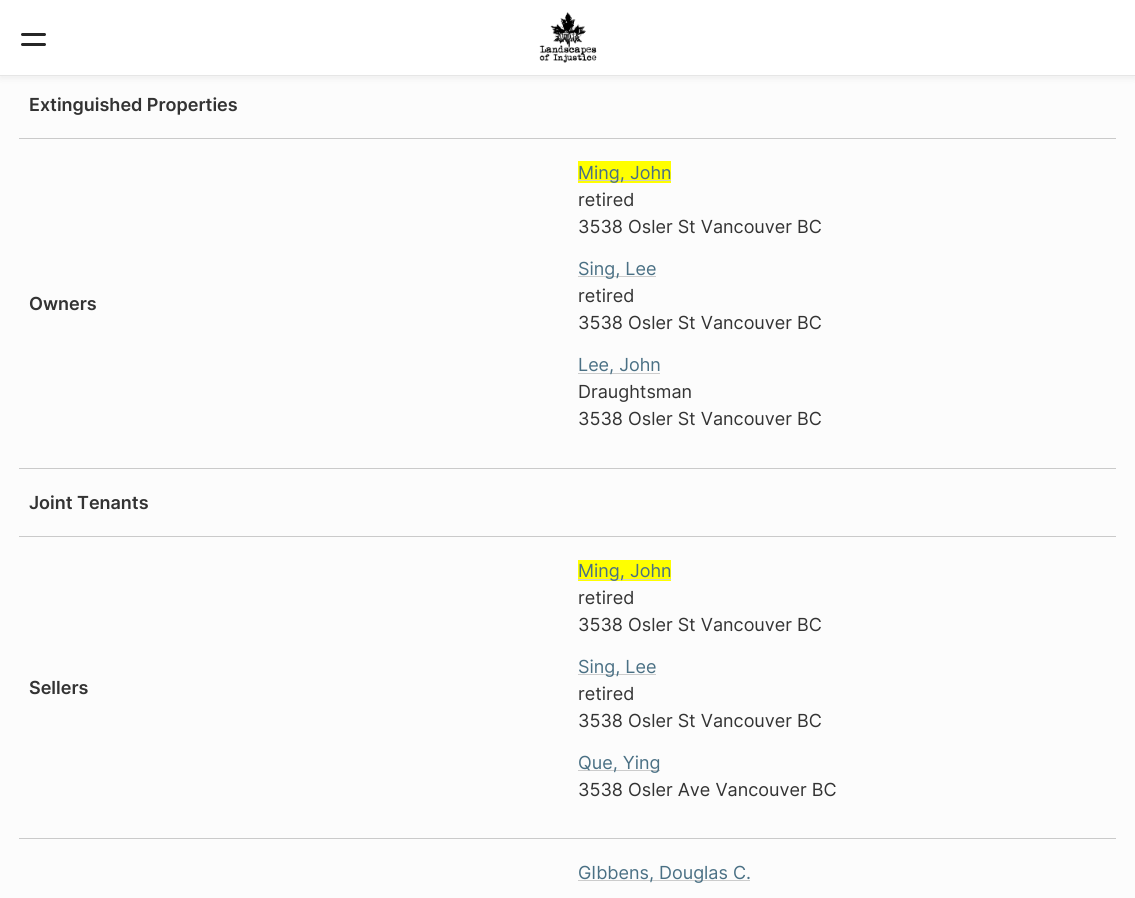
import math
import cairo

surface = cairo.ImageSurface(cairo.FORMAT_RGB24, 1135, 898)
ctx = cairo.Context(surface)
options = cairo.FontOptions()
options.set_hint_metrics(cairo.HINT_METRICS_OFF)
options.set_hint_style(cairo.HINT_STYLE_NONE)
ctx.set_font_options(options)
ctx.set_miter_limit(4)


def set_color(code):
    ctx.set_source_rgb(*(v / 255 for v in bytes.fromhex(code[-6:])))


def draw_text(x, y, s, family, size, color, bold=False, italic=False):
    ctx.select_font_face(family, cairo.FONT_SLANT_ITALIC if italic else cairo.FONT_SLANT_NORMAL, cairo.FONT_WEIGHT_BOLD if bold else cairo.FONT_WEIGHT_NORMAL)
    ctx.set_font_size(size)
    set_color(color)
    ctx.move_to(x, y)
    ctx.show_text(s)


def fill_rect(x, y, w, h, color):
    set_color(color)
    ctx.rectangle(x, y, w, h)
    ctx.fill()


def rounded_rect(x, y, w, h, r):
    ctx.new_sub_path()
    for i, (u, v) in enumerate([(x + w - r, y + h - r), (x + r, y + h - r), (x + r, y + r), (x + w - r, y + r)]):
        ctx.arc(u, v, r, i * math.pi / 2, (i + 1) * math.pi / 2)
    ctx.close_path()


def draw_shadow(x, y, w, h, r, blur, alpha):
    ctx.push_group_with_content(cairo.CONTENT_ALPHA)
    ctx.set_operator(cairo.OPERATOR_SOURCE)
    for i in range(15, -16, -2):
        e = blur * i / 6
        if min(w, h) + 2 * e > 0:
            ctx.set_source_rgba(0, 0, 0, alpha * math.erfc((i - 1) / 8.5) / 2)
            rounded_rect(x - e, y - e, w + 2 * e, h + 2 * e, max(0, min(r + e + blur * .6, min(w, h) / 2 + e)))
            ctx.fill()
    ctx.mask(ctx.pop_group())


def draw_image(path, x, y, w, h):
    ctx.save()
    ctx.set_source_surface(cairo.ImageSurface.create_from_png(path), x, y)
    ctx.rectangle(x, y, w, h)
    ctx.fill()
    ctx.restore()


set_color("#fcfcfc")
ctx.paint()
set_color("#000000")
draw_shadow(0, 3, 1135, 76, 0, 3, 0.05)
fill_rect(0, 0, 1135, 75, "#ffffff")
fill_rect(0, 75, 1135, 1, "#e6e6e6")
set_color("#262626")
rounded_rect(21, 33, 25, 3, 1.5)
ctx.fill()
rounded_rect(21, 43, 25, 3, 1.5)
ctx.fill()
draw_image("assets/img1.png", 539, 12, 58, 51)
draw_text(29, 111, "Extinguished Properties", "Inter SemiBold", 18, "#333333")
fill_rect(19, 138, 1097, 1, "#cacaca")
draw_text(29, 310, "Owners", "Inter SemiBold", 18, "#333333")
fill_rect(19, 468, 1097, 1, "#cacaca")
fill_rect(578, 161, 93, 22, "#ffff00")
fill_rect(578, 180, 93, 1, "#cccccc")
draw_text(578, 179, "Ming, John", "Inter", 18, "#4a7084")
draw_text(578, 206, "retired", "Inter", 18, "#333333")
draw_text(578, 233, "3538 Osler St Vancouver BC", "Inter", 18, "#333333")
fill_rect(578, 276, 78, 1, "#cccccc")
draw_text(578, 275, "Sing, Lee", "Inter", 18, "#4a7084")
draw_text(578, 302, "retired", "Inter", 18, "#333333")
draw_text(578, 329, "3538 Osler St Vancouver BC", "Inter", 18, "#333333")
fill_rect(578, 373, 82, 1, "#cccccc")
draw_text(578, 371, "Lee, John", "Inter", 18, "#4a7084")
draw_text(578, 398, "Draughtsman", "Inter", 18, "#333333")
draw_text(578, 425, "3538 Osler St Vancouver BC", "Inter", 18, "#333333")
draw_text(29, 509, "Joint Tenants", "Inter SemiBold", 18, "#333333")
fill_rect(19, 536, 1097, 1, "#cacaca")
draw_text(29, 694, "Sellers", "Inter SemiBold", 18, "#333333")
fill_rect(19, 838, 1097, 1, "#cacaca")
fill_rect(578, 560, 93, 21, "#ffff00")
fill_rect(578, 579, 93, 1, "#cccccc")
draw_text(578, 577, "Ming, John", "Inter", 18, "#4a7084")
draw_text(578, 604, "retired", "Inter", 18, "#333333")
draw_text(578, 631, "3538 Osler St Vancouver BC", "Inter", 18, "#333333")
fill_rect(578, 674, 78, 1, "#cccccc")
draw_text(578, 673, "Sing, Lee", "Inter", 18, "#4a7084")
draw_text(578, 700, "retired", "Inter", 18, "#333333")
draw_text(578, 727, "3538 Osler St Vancouver BC", "Inter", 18, "#333333")
fill_rect(578, 770, 82, 1, "#cccccc")
draw_text(578, 769, "Que, Ying", "Inter", 18, "#4a7084")
draw_text(578, 796, "3538 Osler Ave Vancouver BC", "Inter", 18, "#333333")
fill_rect(578, 880, 172, 1, "#cccccc")
draw_text(578, 879, "GIbbens, Douglas C.", "Inter", 18, "#4a7084")
surface.write_to_png("output.png")
